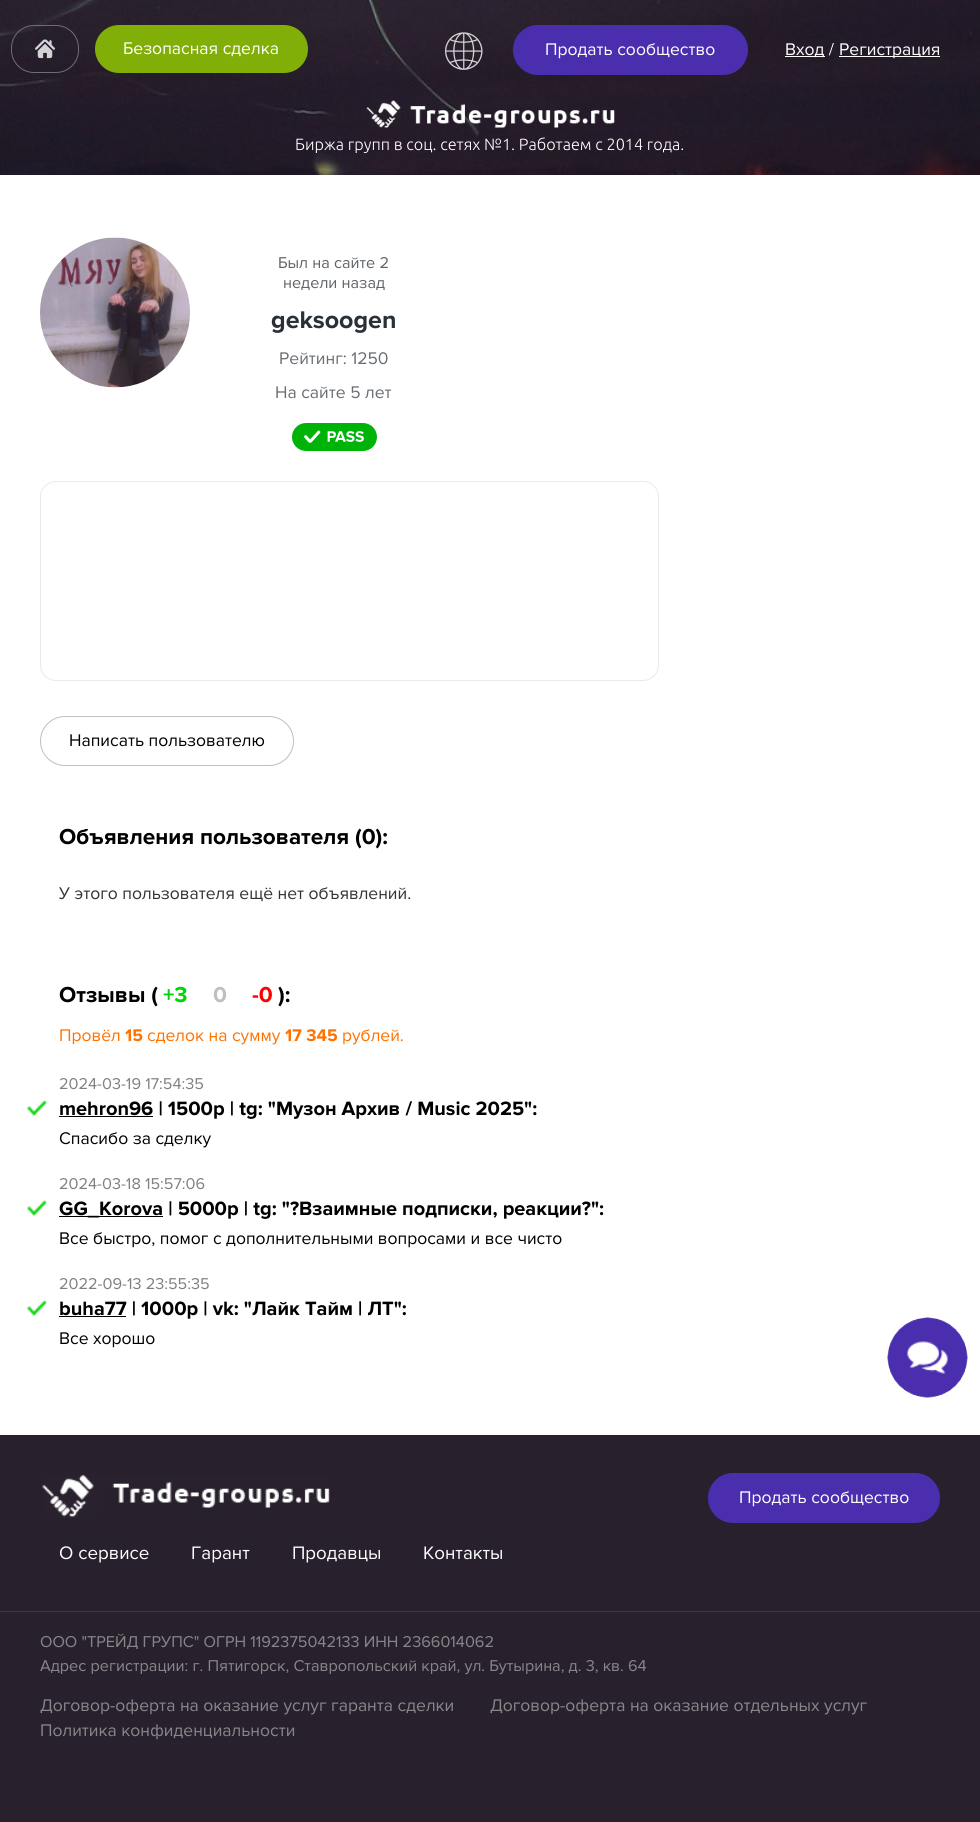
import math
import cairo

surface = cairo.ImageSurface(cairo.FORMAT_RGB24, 980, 1822)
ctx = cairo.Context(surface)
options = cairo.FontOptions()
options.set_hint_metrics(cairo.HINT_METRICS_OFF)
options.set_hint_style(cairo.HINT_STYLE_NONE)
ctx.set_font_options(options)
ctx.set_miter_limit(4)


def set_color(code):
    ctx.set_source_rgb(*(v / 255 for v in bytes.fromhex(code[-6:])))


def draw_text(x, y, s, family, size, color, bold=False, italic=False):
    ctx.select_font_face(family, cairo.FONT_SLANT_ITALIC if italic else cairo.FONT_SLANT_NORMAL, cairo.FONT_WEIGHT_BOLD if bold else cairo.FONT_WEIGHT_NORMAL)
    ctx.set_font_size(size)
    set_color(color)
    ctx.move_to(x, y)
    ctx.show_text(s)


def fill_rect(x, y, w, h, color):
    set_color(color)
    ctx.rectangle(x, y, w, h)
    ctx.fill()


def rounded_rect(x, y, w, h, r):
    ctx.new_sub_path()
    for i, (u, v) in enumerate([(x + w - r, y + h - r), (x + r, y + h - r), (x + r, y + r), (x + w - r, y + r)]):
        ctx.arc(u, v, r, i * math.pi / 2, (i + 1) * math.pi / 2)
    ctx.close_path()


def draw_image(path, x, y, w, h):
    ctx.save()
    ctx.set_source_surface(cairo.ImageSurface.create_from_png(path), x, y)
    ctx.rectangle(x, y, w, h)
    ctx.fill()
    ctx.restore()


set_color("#ffffff")
ctx.paint()
draw_image("assets/img1.png", 0, 0, 980, 175)
rounded_rect(11.5, 25.5, 67, 47, 22.5)
set_color("#706c76")
ctx.set_line_width(1)
ctx.stroke()
draw_image("assets/img2.png", 35, 39, 20, 20)
set_color("#82ae08")
rounded_rect(95, 25, 213, 48, 24)
ctx.fill()
draw_text(123, 54, "Безопасная сделка", "Proxima Nova", 17.5, "#ffffff")
draw_image("assets/img3.png", 445, 32, 38, 38)
set_color("#4b2eae")
rounded_rect(513, 25, 235, 50, 25)
ctx.fill()
draw_text(545, 55, "Продать сообщество", "Proxima Nova", 17.5, "#ffffff")
fill_rect(785, 56, 40, 1, "#ffffff")
draw_text(785, 55, "Вход /", "Proxima Nova", 17.5, "#ffffff")
fill_rect(839, 56, 101, 1, "#ffffff")
draw_text(839, 55, "Регистрация", "Proxima Nova", 17.5, "#ffffff")
draw_image("assets/img4.png", 366, 100, 249, 28)
draw_text(295, 150, "Биржа групп в соц. сетях №1. Работаем с 2014 года.", "Ubuntu Light", 16.25, "#ffffff")
draw_image("assets/img5.png", 40, 237, 150, 151)
draw_text(278, 268, "Был на сайте 2", "Proxima Nova", 16.25, "#5f6469")
draw_text(283, 288, "недели назад", "Proxima Nova", 16.25, "#5f6469")
draw_text(271, 328, "geksoogen", "Proxima Nova", 25, "#293037", bold=True)
draw_text(279, 364, "Рейтинг: 1250", "Proxima Nova", 17.5, "#696e73")
draw_text(275, 398, "На сайте 5 лет", "Proxima Nova", 17.5, "#696e73")
draw_image("assets/img6.png", 292, 423, 85, 28)
rounded_rect(40.5, 481.5, 618, 199, 15.5)
set_color("#eaeaea")
ctx.stroke()
rounded_rect(40.5, 716.5, 253, 49, 24.5)
set_color("#bfbfbf")
ctx.stroke()
draw_text(69, 746, "Написать пользователю", "Proxima Nova", 17.5, "#000000")
draw_text(59, 844, "Объявления пользователя (0):", "Proxima Nova", 22.5, "#000000", bold=True)
draw_text(59, 899, "У этого пользователя ещё нет объявлений.", "Proxima Nova", 17.5, "#333333")
draw_text(59, 1002, "Отзывы (", "Proxima Nova", 22.5, "#000000", bold=True)
draw_text(163, 1002, "+3", "Proxima Nova", 22.5, "#00d50a", bold=True)
draw_text(213, 1002, "0", "Proxima Nova", 22.5, "#bfbfbf", bold=True)
draw_text(252, 1002, "-0", "Proxima Nova", 22.5, "#ff0000", bold=True)
draw_text(278, 1002, "):", "Proxima Nova", 22.5, "#000000", bold=True)
draw_text(59, 1041, "Провёл", "Proxima Nova", 17.5, "#ff7200")
draw_text(125, 1041, "15", "Proxima Nova", 17.5, "#ff7200", bold=True)
draw_text(147, 1041, "сделок на сумму", "Proxima Nova", 17.5, "#ff7200")
draw_text(285, 1041, "17 345", "Proxima Nova", 17.5, "#ff7200", bold=True)
draw_text(342, 1041, "рублей.", "Proxima Nova", 17.5, "#ff7200")
draw_text(59, 1089, "2024-03-19 17:54:35", "Proxima Nova", 16.25, "#808080")
draw_image("assets/img7.png", 27, 1100, 20, 17)
fill_rect(59, 1116, 94, 1, "#000000")
draw_text(59, 1115, "mehron96 | 1500р | tg: \"Музон Архив / Music 2025\":", "Proxima Nova", 20, "#000000", bold=True)
draw_text(59, 1144, "Спасибо за сделку", "Proxima Nova", 17.5, "#000000")
draw_text(59, 1189, "2024-03-18 15:57:06", "Proxima Nova", 16.25, "#808080")
draw_image("assets/img7.png", 27, 1200, 20, 17)
fill_rect(59, 1216, 104, 1, "#000000")
draw_text(59, 1215, "GG_Korova | 5000р | tg: \"?Взаимные подписки, реакции?\":", "Proxima Nova", 20, "#000000", bold=True)
draw_text(59, 1244, "Все быстро, помог с дополнительными вопросами и все чисто", "Proxima Nova", 17.5, "#000000")
draw_text(59, 1289, "2022-09-13 23:55:35", "Proxima Nova", 16.25, "#808080")
draw_image("assets/img7.png", 27, 1300, 20, 17)
fill_rect(59, 1316, 67, 1, "#000000")
draw_text(59, 1315, "buha77 | 1000р | vk: \"Лайк Тайм | ЛТ\":", "Proxima Nova", 20, "#000000", bold=True)
draw_text(59, 1344, "Все хорошо", "Proxima Nova", 17.5, "#000000")
draw_image("assets/img8.png", 887, 1317, 81, 81)
fill_rect(0, 1435, 980, 387, "#28212d")
draw_image("assets/img9.png", 42, 1475, 288, 43)
set_color("#4b2eae")
rounded_rect(708, 1473, 232, 50, 25)
ctx.fill()
draw_text(739, 1503, "Продать сообщество", "Proxima Nova", 17.5, "#ffffff")
draw_text(59, 1559, "О сервисе", "Proxima Nova", 18.75, "#ffffff")
draw_text(191, 1559, "Гарант", "Proxima Nova", 18.75, "#ffffff")
draw_text(292, 1559, "Продавцы", "Proxima Nova", 18.75, "#ffffff")
draw_text(423, 1559, "Контакты", "Proxima Nova", 18.75, "#ffffff")
fill_rect(0, 1611, 980, 1, "#3e3842")
draw_text(40, 1647, "ООО \"ТРЕЙД ГРУПС\" ОГРН 1192375042133 ИНН 2366014062", "Proxima Nova", 16.25, "#89868a")
draw_text(40, 1671, "Адрес регистрации: г. Пятигорск, Ставропольский край, ул. Бутырина, д. 3, кв. 64", "Proxima Nova", 16.25, "#89868a")
draw_text(40, 1711, "Договор-оферта на оказание услуг гаранта сделки", "Proxima Nova", 17.5, "#89868a")
draw_text(490, 1711, "Договор-оферта на оказание отдельных услуг", "Proxima Nova", 17.5, "#89868a")
draw_text(40, 1736, "Политика конфиденциальности", "Proxima Nova", 17.5, "#89868a")
surface.write_to_png("output.png")
